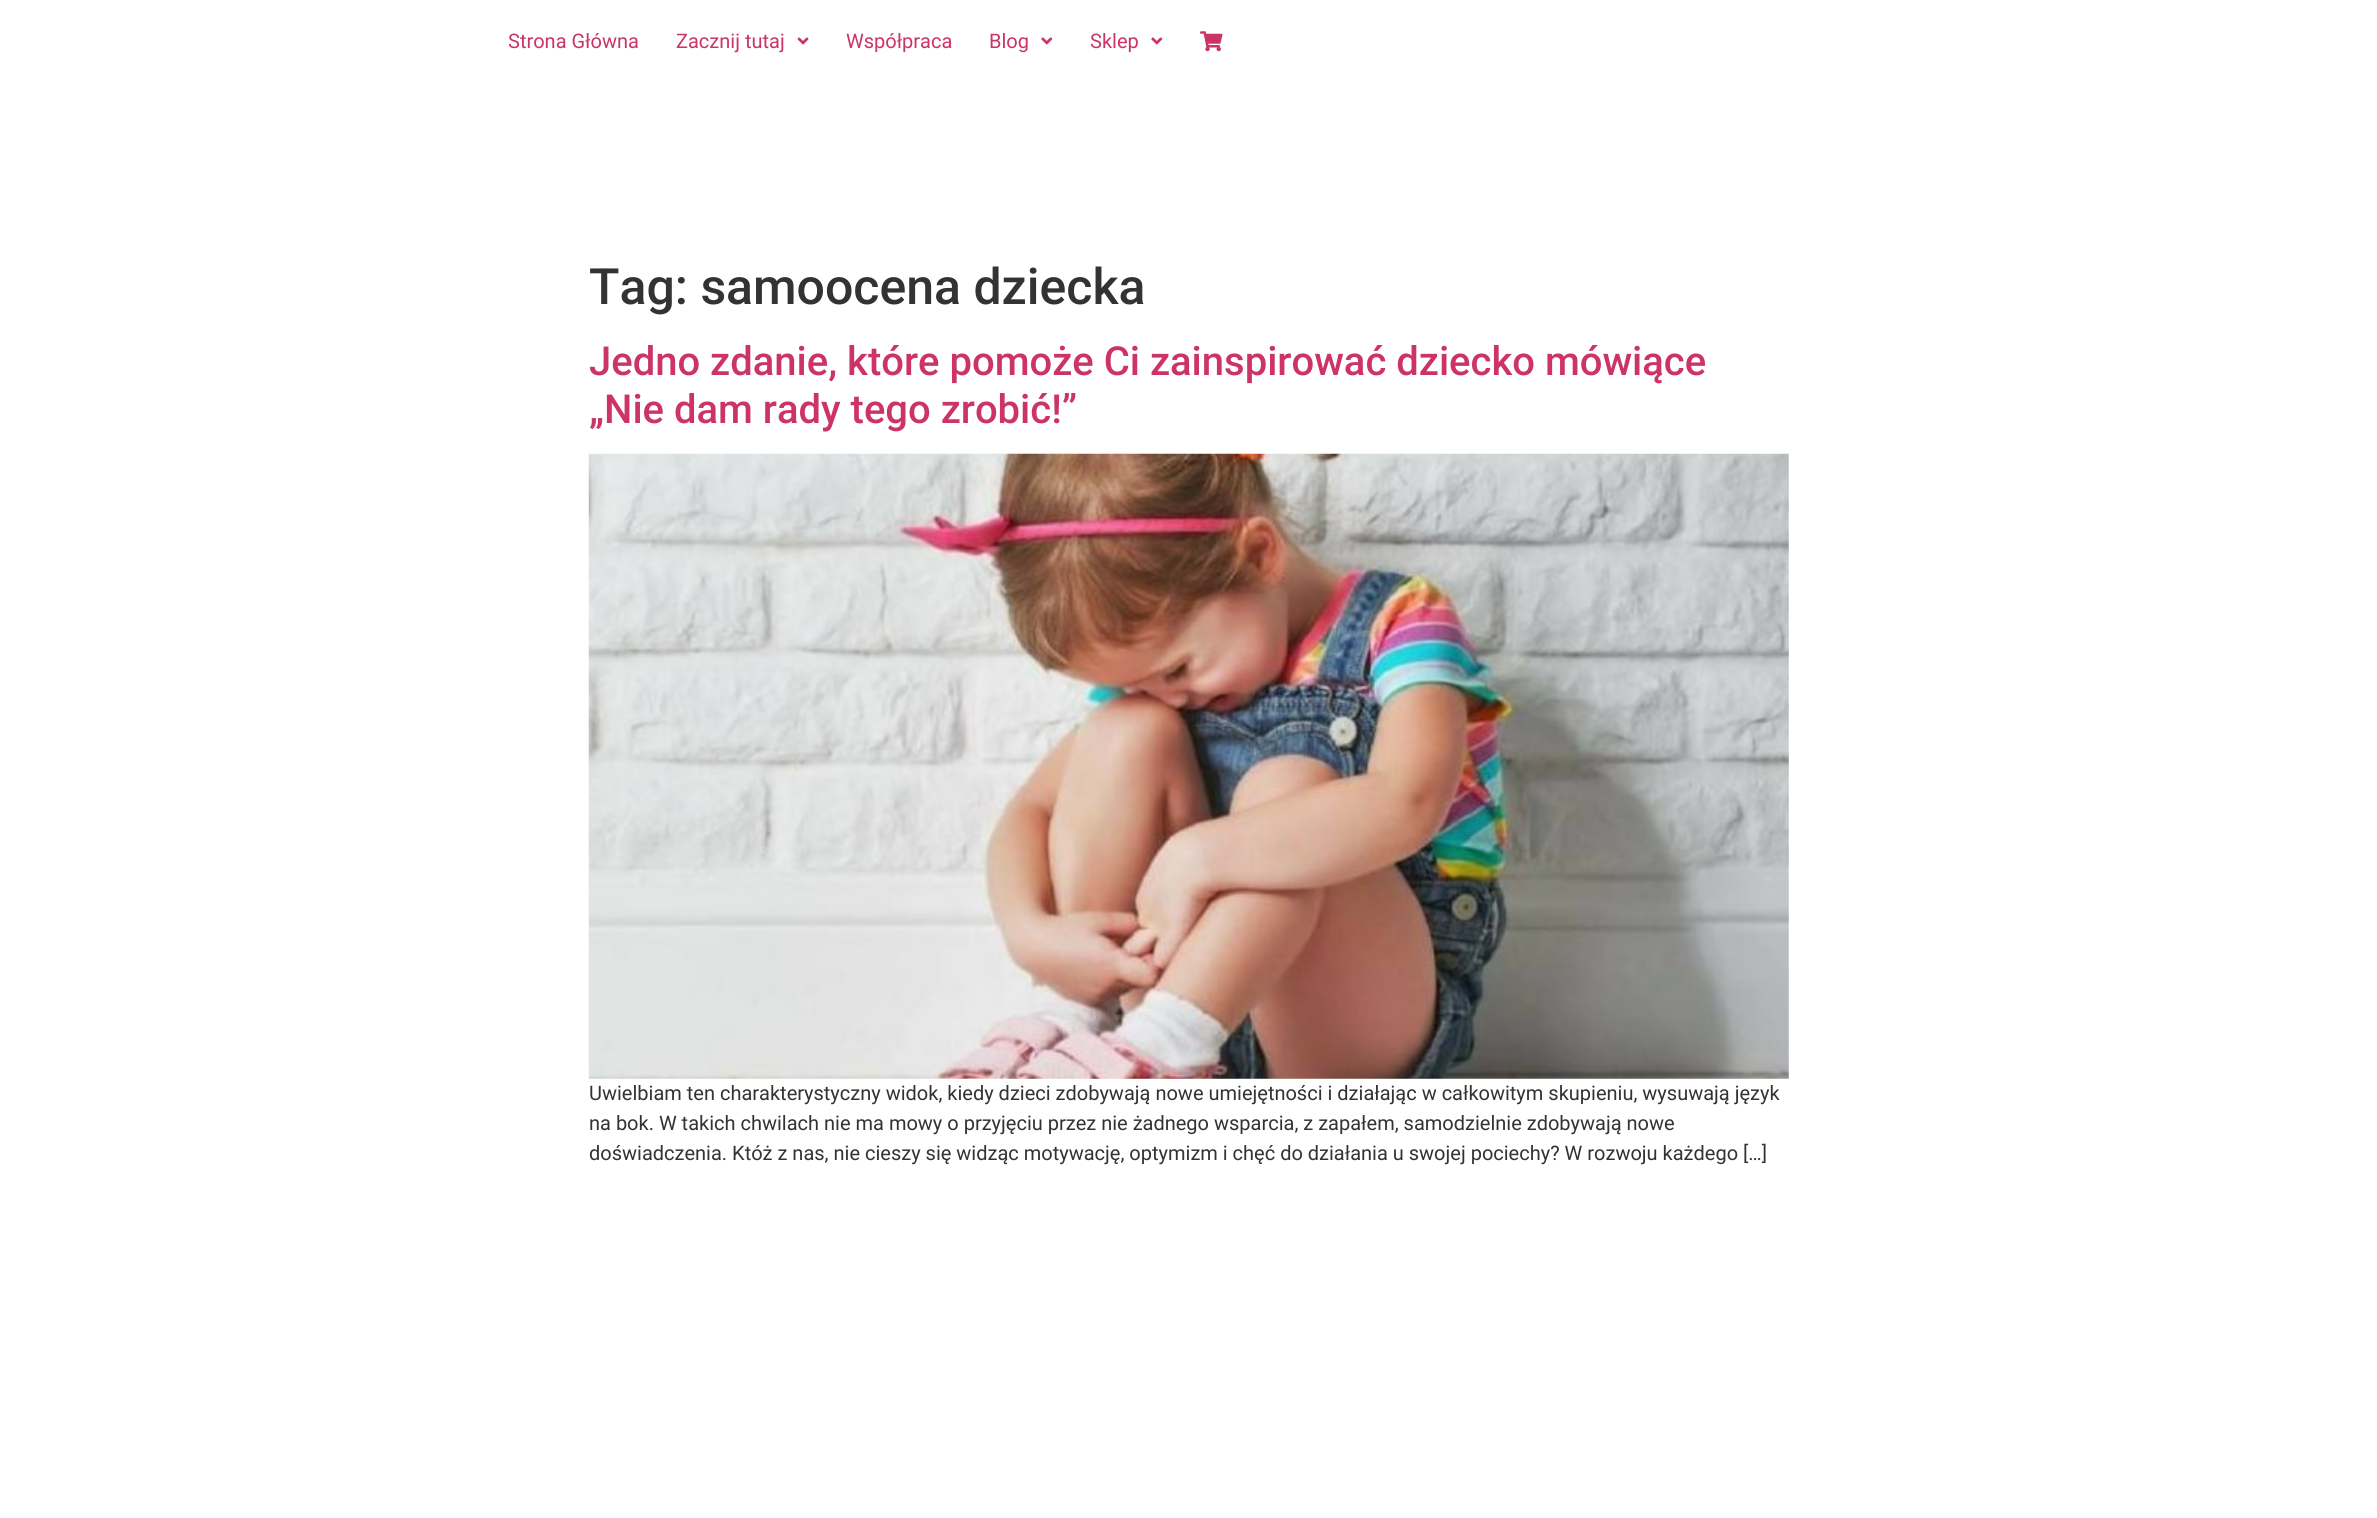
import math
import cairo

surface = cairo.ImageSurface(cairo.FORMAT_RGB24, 2377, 1518)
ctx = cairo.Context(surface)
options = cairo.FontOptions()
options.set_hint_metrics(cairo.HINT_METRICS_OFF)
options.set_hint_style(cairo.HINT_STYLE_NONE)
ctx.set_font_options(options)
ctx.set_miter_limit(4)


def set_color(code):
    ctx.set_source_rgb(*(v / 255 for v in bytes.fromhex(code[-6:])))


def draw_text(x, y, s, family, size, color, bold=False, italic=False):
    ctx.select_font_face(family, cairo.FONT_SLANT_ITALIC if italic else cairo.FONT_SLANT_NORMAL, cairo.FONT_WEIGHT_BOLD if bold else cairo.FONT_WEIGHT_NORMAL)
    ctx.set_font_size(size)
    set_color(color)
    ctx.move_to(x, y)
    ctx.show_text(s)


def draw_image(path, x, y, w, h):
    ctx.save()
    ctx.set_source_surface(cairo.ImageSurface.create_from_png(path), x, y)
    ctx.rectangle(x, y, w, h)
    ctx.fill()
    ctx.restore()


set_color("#ffffff")
ctx.paint()
draw_text(508, 48, "Strona Główna", "Roboto", 20, "#cc3366")
draw_text(676, 48, "Zacznij tutaj", "Roboto", 20, "#cc3366")
draw_image("assets/img1.png", 797, 37, 12, 8)
draw_text(846, 48, "Współpraca", "Roboto", 20, "#cc3366")
draw_text(989, 48, "Blog", "Roboto", 20, "#cc3366")
draw_image("assets/img2.png", 1041, 37, 12, 8)
draw_text(1090, 48, "Sklep", "Roboto", 20, "#cc3366")
draw_image("assets/img2.png", 1151, 37, 12, 8)
draw_image("assets/img3.png", 1200, 31, 23, 21)
draw_text(589, 304, "Tag: samoocena dziecka", "Roboto Medium", 50, "#333333")
draw_text(589, 375, "Jedno zdanie, które pomoże Ci zainspirować dziecko mówiące", "Roboto Medium", 40, "#cc3366")
draw_text(589, 423, "„Nie dam rady tego zrobić!”", "Roboto Medium", 40, "#cc3366")
draw_image("assets/img4.png", 588, 453, 1201, 626)
draw_text(589, 1100, "Uwielbiam ten charakterystyczny widok, kiedy dzieci zdobywają nowe umiejętności i działając w całkowitym skupieniu, wysuwają język", "Roboto", 20, "#333333")
draw_text(589, 1130, "na bok. W takich chwilach nie ma mowy o przyjęciu przez nie żadnego wsparcia, z zapałem, samodzielnie zdobywają nowe", "Roboto", 20, "#333333")
draw_text(589, 1160, "doświadczenia. Któż z nas, nie cieszy się widząc motywację, optymizm i chęć do działania u swojej pociechy? W rozwoju każdego […]", "Roboto", 20, "#333333")
surface.write_to_png("output.png")
